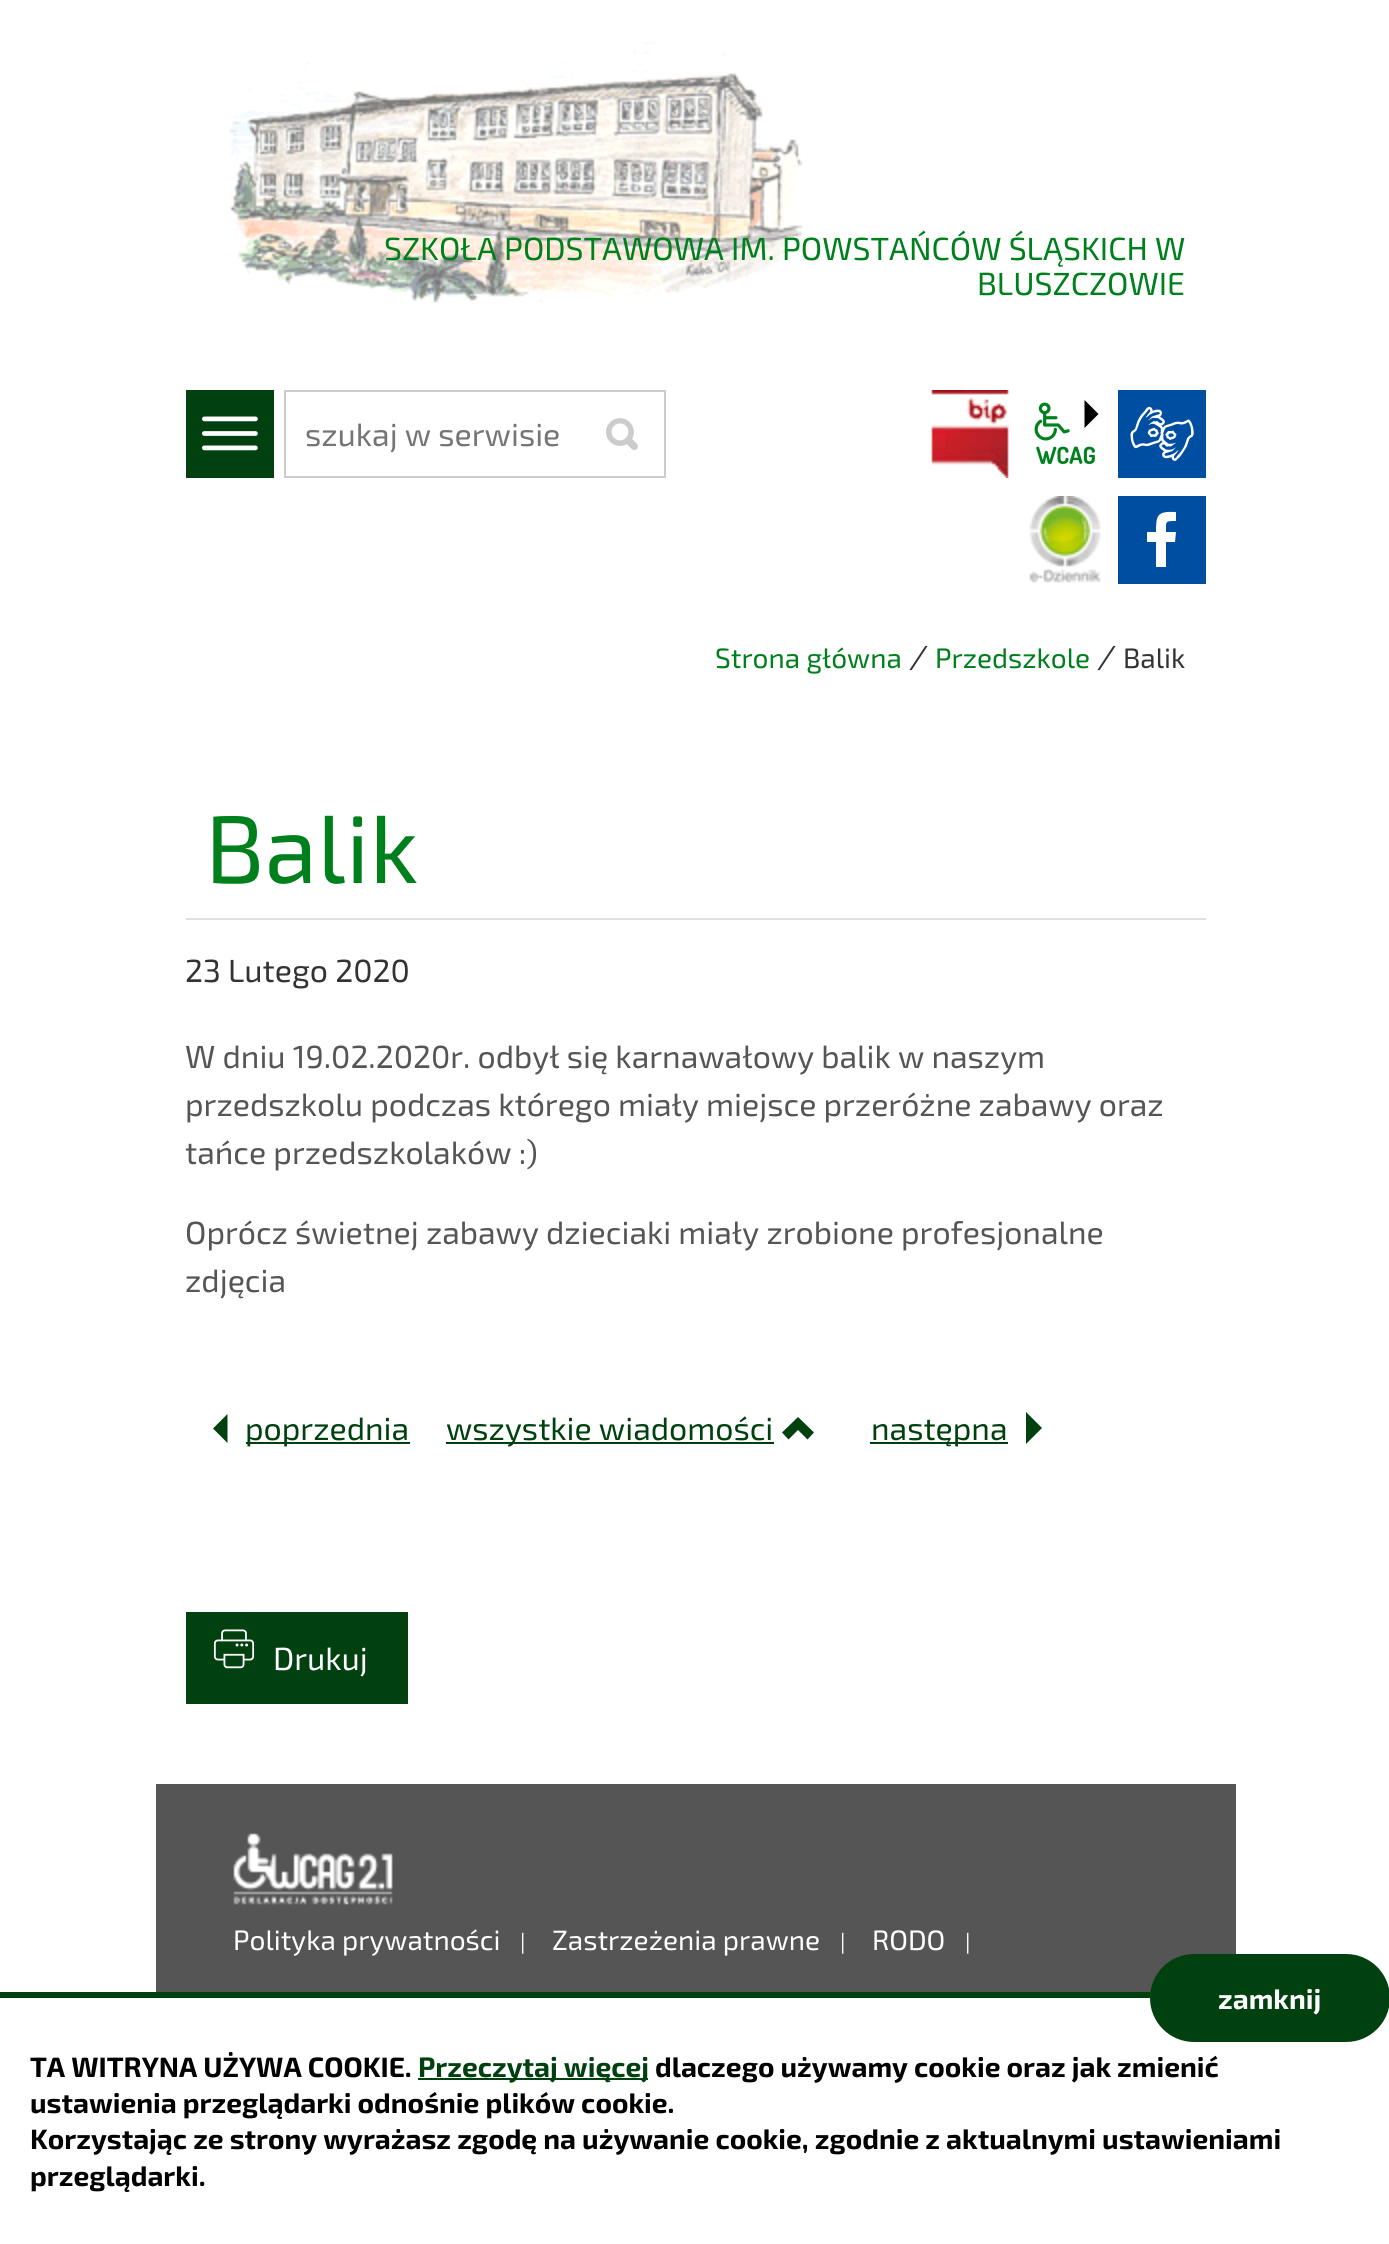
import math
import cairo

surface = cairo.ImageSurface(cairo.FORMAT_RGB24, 1389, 2244)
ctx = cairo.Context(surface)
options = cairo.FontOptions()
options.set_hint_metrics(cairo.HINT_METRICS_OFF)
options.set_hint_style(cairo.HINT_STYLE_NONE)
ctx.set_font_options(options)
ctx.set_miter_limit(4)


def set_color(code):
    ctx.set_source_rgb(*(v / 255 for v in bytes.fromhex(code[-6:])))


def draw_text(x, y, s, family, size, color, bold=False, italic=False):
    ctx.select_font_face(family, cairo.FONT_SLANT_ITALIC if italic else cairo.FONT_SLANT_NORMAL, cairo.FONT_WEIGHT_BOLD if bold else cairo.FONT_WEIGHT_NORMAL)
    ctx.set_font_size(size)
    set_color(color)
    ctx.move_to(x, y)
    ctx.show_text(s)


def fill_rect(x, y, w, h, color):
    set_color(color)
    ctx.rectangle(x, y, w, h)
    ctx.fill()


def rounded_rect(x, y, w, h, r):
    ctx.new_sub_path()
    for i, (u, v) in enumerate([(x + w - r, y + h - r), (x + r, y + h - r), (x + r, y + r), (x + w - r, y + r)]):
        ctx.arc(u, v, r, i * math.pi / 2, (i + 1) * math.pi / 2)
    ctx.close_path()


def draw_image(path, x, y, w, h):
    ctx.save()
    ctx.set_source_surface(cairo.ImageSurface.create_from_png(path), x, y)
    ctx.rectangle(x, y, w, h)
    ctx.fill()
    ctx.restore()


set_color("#ffffff")
ctx.paint()
draw_image("assets/img1.png", 228, 42, 576, 261)
draw_text(384, 260, "SZKOŁA PODSTAWOWA IM. POWSTAŃCÓW ŚLĄSKICH W", "Exo 2", 32, "#00801d")
draw_text(977, 295, "BLUSZCZOWIE", "Exo 2", 32, "#00801d")
fill_rect(186, 390, 88, 88, "#00410f")
draw_image("assets/img2.png", 202, 416, 56, 35)
ctx.rectangle(285, 391, 380, 86)
set_color("#cccccc")
ctx.stroke()
draw_text(305, 446, "szukaj w serwisie", "Exo 2", 32, "#757575")
draw_image("assets/img3.png", 606, 418, 32, 32)
draw_image("assets/img4.png", 931, 390, 78, 88)
draw_image("assets/img5.png", 1034, 402, 61, 62)
set_color("#000000")
ctx.new_path()
ctx.move_to(1084.5, 400)
ctx.line_to(1098.5, 414)
ctx.line_to(1084.5, 428)
ctx.close_path()
ctx.fill()
fill_rect(1118, 390, 88, 88, "#004ea2")
draw_image("assets/img6.png", 1130, 406, 64, 55)
draw_image("assets/img7.png", 1029, 496, 72, 87)
fill_rect(1118, 496, 88, 88, "#004ea2")
set_color("#ffffff")
ctx.new_path()
ctx.move_to(1147, 532)
ctx.line_to(1156, 532)
ctx.curve_to(1156, 515, 1157, 511, 1176, 512)
ctx.line_to(1176, 521)
ctx.curve_to(1165, 521, 1166, 521, 1166, 532)
ctx.line_to(1176, 532)
ctx.line_to(1175, 542)
ctx.line_to(1166, 542)
ctx.line_to(1166, 567)
ctx.line_to(1156, 567)
ctx.line_to(1156, 542)
ctx.line_to(1147, 542)
ctx.close_path()
ctx.fill()
draw_text(715, 668, "Strona główna", "Exo 2", 28, "#00801d")
draw_text(910, 668, "/", "Exo 2", 32, "#333333", italic=True)
draw_text(935, 668, "Przedszkole", "Exo 2", 28, "#00801d")
draw_text(1098, 668, "/", "Exo 2", 32, "#333333", italic=True)
draw_text(1123, 668, "Balik", "Exo 2", 28, "#333333")
fill_rect(186, 918, 1020, 2, "#e1e1e1")
draw_text(205, 883, "Balik", "Exo 2", 96, "#00801d")
draw_text(185, 982, "23 Lutego 2020", "Exo 2", 32, "#333333")
draw_text(185, 1068, "W dniu 19.02.2020r. odbył się karnawałowy balik w naszym", "Exo 2", 32, "#555555")
draw_text(185, 1116, "przedszkolu podczas którego miały miejsce przeróżne zabawy oraz", "Exo 2", 32, "#555555")
draw_text(185, 1164, "tańce przedszkolaków :)", "Exo 2", 32, "#555555")
draw_text(185, 1244, "Oprócz świetnej zabawy dzieciaki miały zrobione profesjonalne", "Exo 2", 32, "#555555")
draw_text(185, 1292, "zdjęcia", "Exo 2", 32, "#555555")
set_color("#00410f")
ctx.new_path()
ctx.move_to(227.5, 1414)
ctx.line_to(213, 1428.5)
ctx.line_to(227.5, 1443)
ctx.close_path()
ctx.fill()
fill_rect(246, 1442, 164, 2, "#00410f")
draw_text(245, 1440, "poprzednia", "Exo 2", 32, "#00410f")
fill_rect(446, 1442, 328, 2, "#00410f")
draw_text(446, 1440, "wszystkie wiadomości", "Exo 2", 32, "#00410f")
ctx.new_path()
ctx.move_to(798, 1430)
ctx.line_to(788.5, 1439.5)
ctx.line_to(782, 1432.5)
ctx.line_to(798, 1417)
ctx.line_to(814, 1432.5)
ctx.line_to(807.5, 1439.5)
ctx.close_path()
ctx.fill()
fill_rect(870, 1442, 138, 2, "#00410f")
draw_text(871, 1440, "następna", "Exo 2", 32, "#00410f")
ctx.new_path()
ctx.move_to(1026, 1412)
ctx.line_to(1042, 1428)
ctx.line_to(1026, 1444)
ctx.close_path()
ctx.fill()
fill_rect(186, 1612, 222, 92, "#00410f")
draw_image("assets/img8.png", 213, 1629, 42, 40)
draw_text(273, 1670, "Drukuj", "Exo 2", 32, "#ffffff")
fill_rect(156, 1784, 1080, 208, "#555555")
draw_image("assets/img9.png", 233, 1833, 160, 72)
draw_text(233, 1950, "Polityka prywatności", "Exo 2", 28, "#ffffff")
draw_text(520, 1950, "|", "Exo 2", 22, "#ffffff")
draw_text(552, 1950, "Zastrzeżenia prawne", "Exo 2", 28, "#ffffff")
draw_text(840, 1950, "|", "Exo 2", 22, "#ffffff")
draw_text(872, 1950, "RODO", "Exo 2", 28, "#ffffff")
draw_text(965, 1950, "|", "Exo 2", 22, "#ffffff")
fill_rect(0, 1992, 1151, 6, "#00410f")
rounded_rect(1150, 1954, 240, 88, 44)
ctx.fill()
draw_text(1218, 2009, "zamknij", "Exo 2", 28, "#ffffff", bold=True)
draw_text(30, 2077, "TA WITRYNA UŻYWA COOKIE.", "Exo 2", 28, "#000000", bold=True)
fill_rect(418, 2078, 230, 2, "#00410f")
draw_text(418, 2077, "Przeczytaj więcej", "Exo 2", 28, "#00410f", bold=True)
draw_text(655, 2077, "dlaczego używamy cookie oraz jak zmienić", "Exo 2", 28, "#000000", bold=True)
draw_text(30, 2113, "ustawienia przeglądarki odnośnie plików cookie.", "Exo 2", 28, "#000000", bold=True)
draw_text(30, 2149, "Korzystając ze strony wyrażasz zgodę na używanie cookie, zgodnie z aktualnymi ustawieniami", "Exo 2", 28, "#000000", bold=True)
draw_text(30, 2186, "przeglądarki.", "Exo 2", 28, "#000000", bold=True)
surface.write_to_png("output.png")
